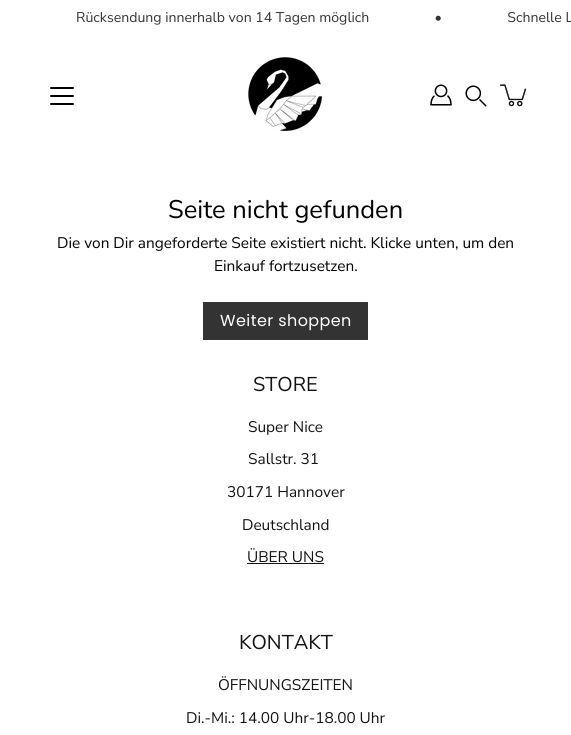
import math
import cairo

surface = cairo.ImageSurface(cairo.FORMAT_RGB24, 571, 735)
ctx = cairo.Context(surface)
options = cairo.FontOptions()
options.set_hint_metrics(cairo.HINT_METRICS_OFF)
options.set_hint_style(cairo.HINT_STYLE_NONE)
ctx.set_font_options(options)
ctx.set_miter_limit(4)


def set_color(code):
    ctx.set_source_rgb(*(v / 255 for v in bytes.fromhex(code[-6:])))


def draw_text(x, y, s, family, size, color, bold=False, italic=False):
    ctx.select_font_face(family, cairo.FONT_SLANT_ITALIC if italic else cairo.FONT_SLANT_NORMAL, cairo.FONT_WEIGHT_BOLD if bold else cairo.FONT_WEIGHT_NORMAL)
    ctx.set_font_size(size)
    set_color(color)
    ctx.move_to(x, y)
    ctx.show_text(s)


def draw_spaced(x, y, s, letter, word):
    ctx.move_to(x, y)
    for ch in s:
        ctx.show_text(ch)
        ctx.rel_move_to(letter + word * (ch == ' '), 0)


def fill_rect(x, y, w, h, color):
    set_color(color)
    ctx.rectangle(x, y, w, h)
    ctx.fill()


def rounded_rect(x, y, w, h, r):
    ctx.new_sub_path()
    for i, (u, v) in enumerate([(x + w - r, y + h - r), (x + r, y + h - r), (x + r, y + r), (x + w - r, y + r)]):
        ctx.arc(u, v, r, i * math.pi / 2, (i + 1) * math.pi / 2)
    ctx.close_path()


def draw_image(path, x, y, w, h):
    ctx.save()
    ctx.set_source_surface(cairo.ImageSurface.create_from_png(path), x, y)
    ctx.rectangle(x, y, w, h)
    ctx.fill()
    ctx.restore()


set_color("#ffffff")
ctx.paint()
draw_text(76, 22, "Rücksendung innerhalb von 14 Tagen möglich                  •                  Schnelle L", "Nunito Sans", 14.1, "#333333")
draw_image("assets/img1.png", 248, 57, 75, 75)
set_color("#000000")
rounded_rect(50, 95, 24, 2, 1)
ctx.fill()
rounded_rect(50, 87, 24, 2, 1)
ctx.fill()
rounded_rect(50, 103, 24, 2, 1)
ctx.fill()
draw_image("assets/img2.png", 430, 84, 22, 22)
draw_image("assets/img3.png", 465, 85, 22, 22)
draw_image("assets/img4.png", 500, 84, 26, 23)
draw_text(168, 218, "Seite nicht gefunden", "Nunito", 25.5, "#000000")
draw_text(57, 248, "Die von Dir angeforderte Seite existiert nicht. Klicke unten, um den", "Nunito Sans", 15.4, "#000000")
draw_text(214, 271, "Einkauf fortzusetzen.", "Nunito Sans", 15.4, "#000000")
fill_rect(203, 302, 165, 38, "#333333")
ctx.select_font_face("Poppins")
ctx.set_font_size(16)
set_color("#ffffff")
draw_spaced(220, 326, "Weiter shoppen", 0.4, 0)
draw_text(253, 391, "STORE", "Nunito Sans", 20, "#141313")
draw_text(248, 432, "Super Nice", "Nunito Sans", 15.4, "#141313")
draw_text(248, 464, "Sallstr. 31", "Nunito Sans", 15.4, "#141313")
draw_text(227, 497, "30171 Hannover", "Nunito Sans", 15.4, "#141313")
draw_text(242, 530, "Deutschland", "Nunito Sans", 15.4, "#141313")
draw_text(247, 562, "ÜBER UNS", "Nunito Sans", 15.4, "#141313")
fill_rect(247, 563, 77, 1, "#141313")
draw_text(239, 649, "KONTAKT", "Nunito Sans", 20, "#141313")
draw_text(218, 690, "ÖFFNUNGSZEITEN", "Nunito Sans", 15.4, "#141313")
draw_text(186, 723, "Di.-Mi.: 14.00 Uhr-18.00 Uhr", "Nunito Sans", 15.4, "#141313")
surface.write_to_png("output.png")
